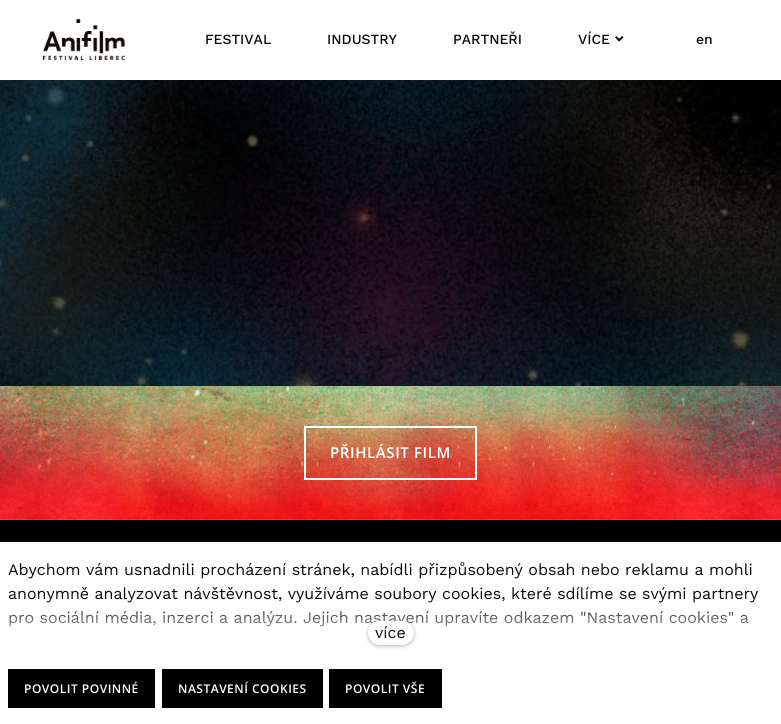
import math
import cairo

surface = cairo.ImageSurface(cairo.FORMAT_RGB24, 781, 724)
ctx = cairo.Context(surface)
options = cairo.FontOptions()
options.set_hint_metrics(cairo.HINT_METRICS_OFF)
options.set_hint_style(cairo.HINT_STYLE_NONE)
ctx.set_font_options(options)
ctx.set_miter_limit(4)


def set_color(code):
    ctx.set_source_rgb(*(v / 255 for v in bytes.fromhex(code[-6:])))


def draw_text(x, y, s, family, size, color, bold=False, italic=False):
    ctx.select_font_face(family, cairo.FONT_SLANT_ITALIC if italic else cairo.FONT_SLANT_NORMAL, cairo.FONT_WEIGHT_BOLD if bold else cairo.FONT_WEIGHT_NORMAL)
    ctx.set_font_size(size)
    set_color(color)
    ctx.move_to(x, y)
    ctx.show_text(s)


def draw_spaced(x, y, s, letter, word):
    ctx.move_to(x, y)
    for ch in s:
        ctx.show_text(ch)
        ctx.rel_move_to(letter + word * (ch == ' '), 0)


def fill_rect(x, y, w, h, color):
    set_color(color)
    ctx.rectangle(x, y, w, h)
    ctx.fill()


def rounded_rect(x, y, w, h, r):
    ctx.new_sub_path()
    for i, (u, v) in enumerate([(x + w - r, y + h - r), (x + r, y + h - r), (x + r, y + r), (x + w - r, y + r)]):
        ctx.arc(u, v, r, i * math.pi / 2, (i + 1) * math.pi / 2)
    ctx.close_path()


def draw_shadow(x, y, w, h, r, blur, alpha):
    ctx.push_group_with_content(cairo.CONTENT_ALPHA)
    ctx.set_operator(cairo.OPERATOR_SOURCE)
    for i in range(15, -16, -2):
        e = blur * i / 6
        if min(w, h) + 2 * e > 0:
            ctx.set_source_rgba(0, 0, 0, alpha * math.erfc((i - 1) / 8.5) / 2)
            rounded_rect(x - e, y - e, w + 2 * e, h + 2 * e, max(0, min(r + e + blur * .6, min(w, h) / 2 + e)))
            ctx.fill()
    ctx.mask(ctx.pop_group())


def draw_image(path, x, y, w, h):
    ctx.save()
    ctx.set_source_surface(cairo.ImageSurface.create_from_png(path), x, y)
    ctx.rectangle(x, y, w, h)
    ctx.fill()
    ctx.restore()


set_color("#ffffff")
ctx.paint()
draw_image("assets/img1.png", 42, 19, 83, 42)
draw_text(205, 44, "FESTIVAL", "Work Sans Medium", 14, "#0b0b0b")
draw_text(327, 44, "INDUSTRY", "Work Sans Medium", 14, "#0b0b0b")
draw_text(453, 44, "PARTNEŘI", "Work Sans Medium", 14, "#0b0b0b")
draw_text(578, 44, "VÍCE", "Work Sans Medium", 14, "#0b0b0b")
ctx.new_path()
ctx.move_to(622, 36)
ctx.line_to(623.5, 37.5)
ctx.line_to(619, 41.5)
ctx.line_to(618, 40)
ctx.close_path()
ctx.fill()
ctx.new_path()
ctx.move_to(616.5, 36)
ctx.line_to(620.5, 40)
ctx.line_to(619, 41.5)
ctx.line_to(615, 37.5)
ctx.close_path()
ctx.fill()
draw_text(696, 44, "en", "Work Sans Medium", 14, "#0b0b0b")
draw_image("assets/img2.png", 0, 80, 781, 306)
draw_image("assets/img3.png", 0, 386, 781, 134)
ctx.rectangle(305, 427, 171, 52)
set_color("#ffffff")
ctx.stroke()
ctx.select_font_face("Open Sans SemiBold")
ctx.set_font_size(15)
draw_spaced(330, 458, "PŘIHLÁSIT FILM", 0.6, 0)
fill_rect(0, 520, 781, 22, "#000000")
draw_text(8, 575, "Abychom vám usnadnili procházení stránek, nabídli přizpůsobený obsah nebo reklamu a mohli", "Work Sans", 16, "#0b0b0b")
draw_text(8, 599, "anonymně analyzovat návštěvnost, využíváme soubory cookies, které sdílíme se svými partnery", "Work Sans", 16, "#0b0b0b")
draw_text(8, 623, "pro sociální média, inzerci a analýzu. Jejich nastavení upravíte odkazem \"Nastavení cookies\" a", "Work Sans", 16, "#0b0b0b")
gradient = cairo.LinearGradient(391, 653, 391, 598)
gradient.add_color_stop_rgba(0, 1, 1, 1, 1)
gradient.add_color_stop_rgba(1, 1, 1, 1, 0)
ctx.set_source(gradient)
ctx.rectangle(9, 599, 746, 28)
ctx.fill()
set_color("#000000")
draw_shadow(368, 622, 46, 24, 12, 2, 0.3)
set_color("#ffffff")
rounded_rect(368, 621, 46, 24, 12)
ctx.fill()
draw_text(375, 638, "více", "Work Sans", 16, "#0b0b0b")
fill_rect(8, 669, 147, 39, "#000000")
ctx.select_font_face("Open Sans SemiBold")
ctx.set_font_size(12)
set_color("#ffffff")
draw_spaced(24, 693, "POVOLIT POVINNÉ", 0.5, 0)
fill_rect(162, 669, 161, 39, "#000000")
set_color("#ffffff")
draw_spaced(178, 693, "NASTAVENÍ COOKIES", 0.5, 0)
fill_rect(329, 669, 113, 39, "#000000")
set_color("#ffffff")
draw_spaced(345, 693, "POVOLIT VŠE", 0.5, 0)
surface.write_to_png("output.png")
